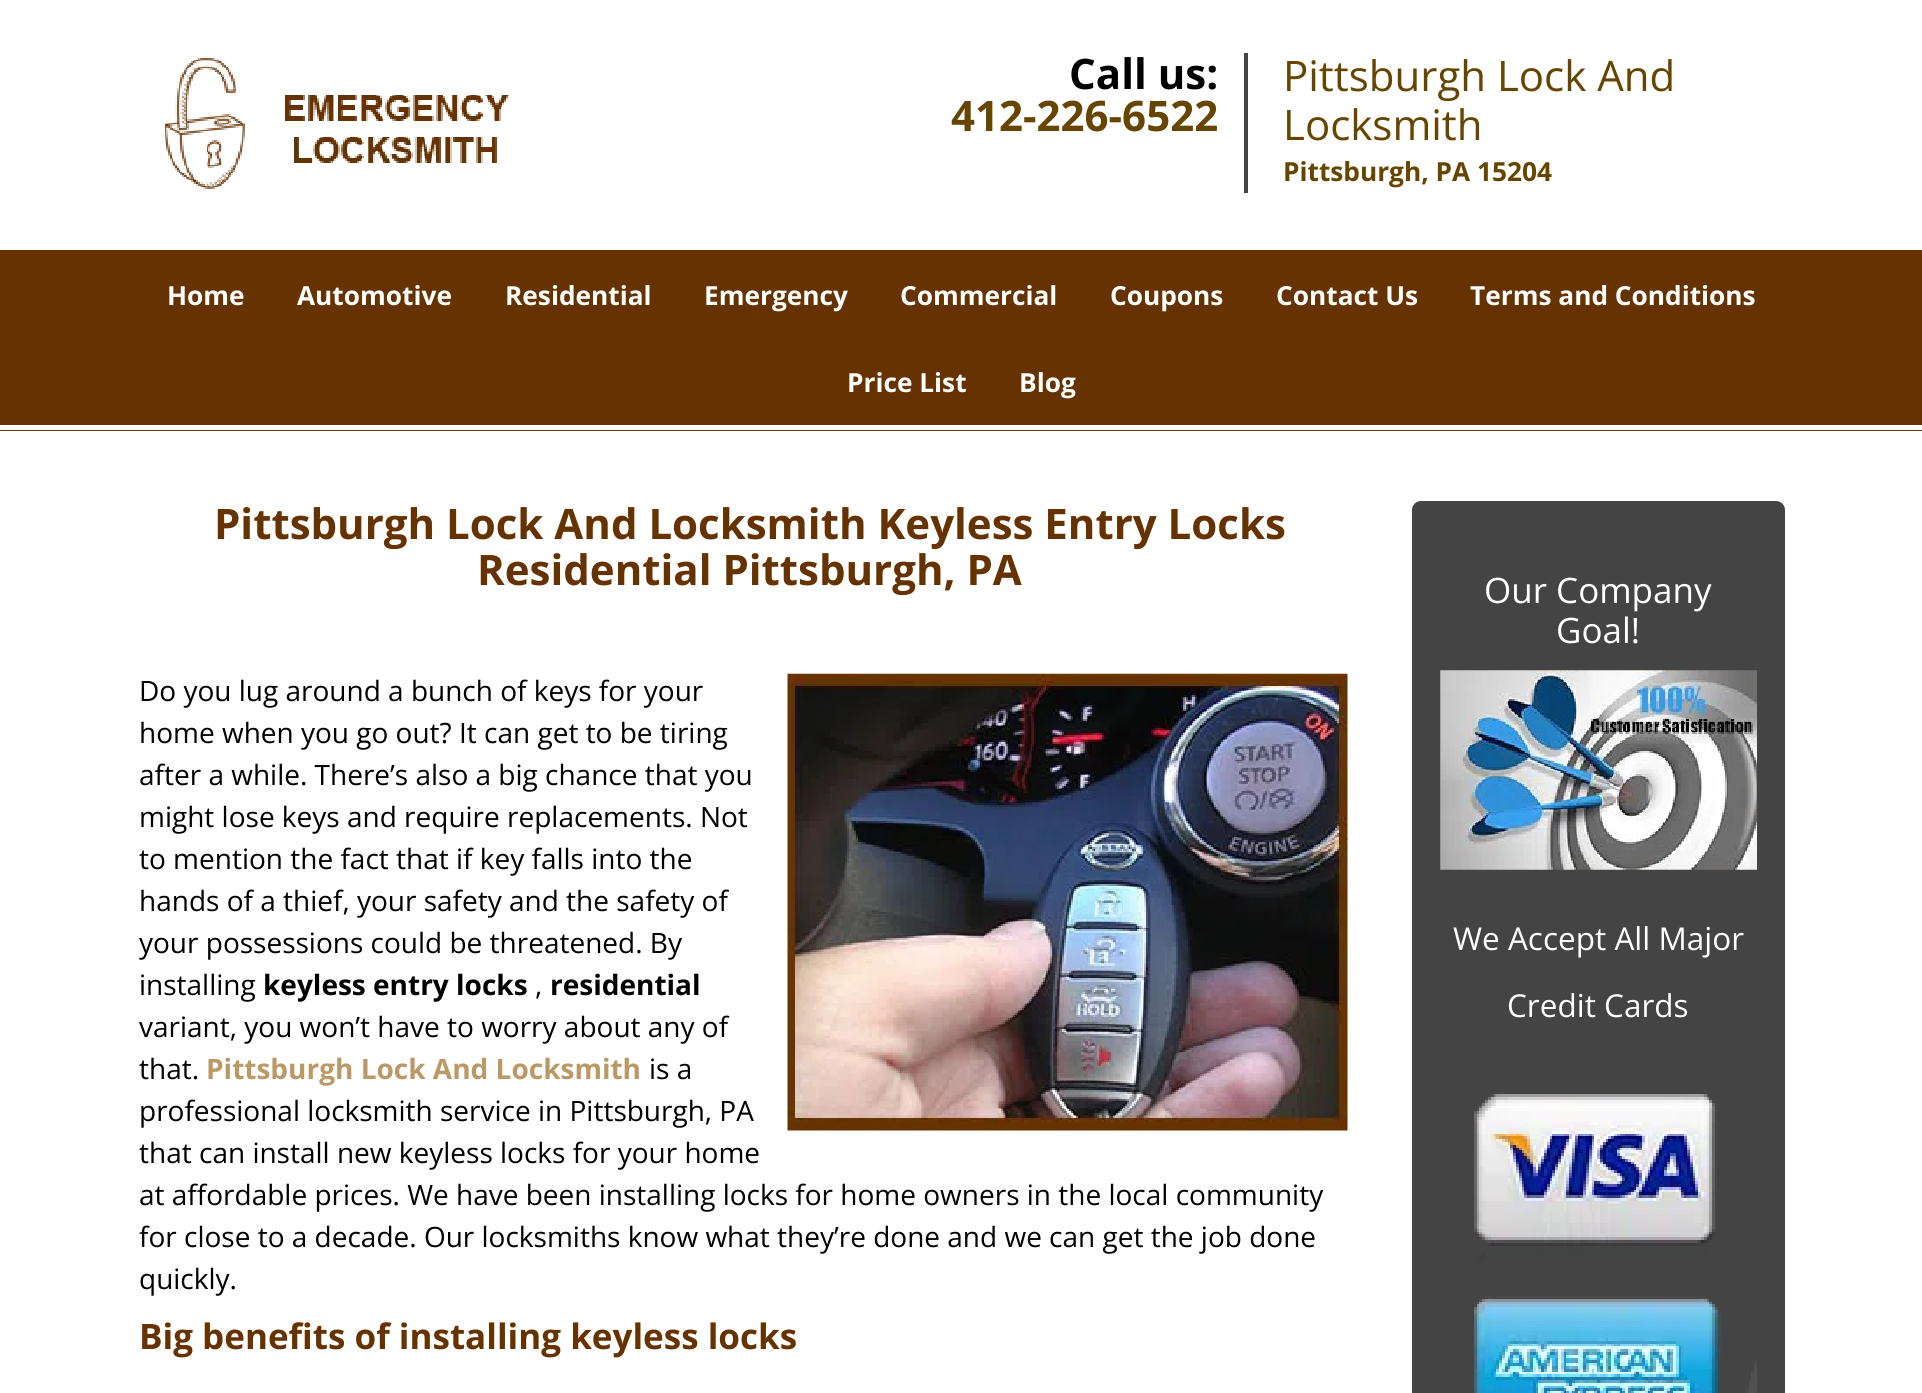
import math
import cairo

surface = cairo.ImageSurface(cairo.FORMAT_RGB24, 1922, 1393)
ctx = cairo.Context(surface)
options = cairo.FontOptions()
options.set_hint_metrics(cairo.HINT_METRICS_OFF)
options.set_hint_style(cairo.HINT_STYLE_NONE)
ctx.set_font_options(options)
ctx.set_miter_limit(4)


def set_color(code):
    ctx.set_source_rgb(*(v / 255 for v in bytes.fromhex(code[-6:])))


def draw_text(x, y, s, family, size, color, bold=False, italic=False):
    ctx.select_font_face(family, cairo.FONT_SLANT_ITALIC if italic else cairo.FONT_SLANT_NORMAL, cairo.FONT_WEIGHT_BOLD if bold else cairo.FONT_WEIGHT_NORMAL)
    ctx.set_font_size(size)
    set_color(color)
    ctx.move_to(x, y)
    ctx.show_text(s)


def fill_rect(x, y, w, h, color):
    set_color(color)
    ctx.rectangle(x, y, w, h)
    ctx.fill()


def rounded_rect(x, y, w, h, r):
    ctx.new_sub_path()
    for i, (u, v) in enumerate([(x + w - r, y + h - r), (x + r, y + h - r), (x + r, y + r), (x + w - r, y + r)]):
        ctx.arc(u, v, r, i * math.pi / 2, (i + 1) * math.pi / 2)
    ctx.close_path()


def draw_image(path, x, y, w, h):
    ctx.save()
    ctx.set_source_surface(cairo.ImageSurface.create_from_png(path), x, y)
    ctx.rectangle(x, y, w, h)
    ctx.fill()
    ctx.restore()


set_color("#ffffff")
ctx.paint()
draw_image("assets/img1.png", 165, 58, 344, 131)
draw_text(1069, 89, "Call us:", "Open Sans", 42, "#000000", bold=True)
draw_text(951, 131, "412-226-6522", "Open Sans", 42, "#664500", bold=True)
fill_rect(1244, 53, 4, 140, "#444444")
draw_text(1283, 91, "Pittsburgh Lock And", "Open Sans", 42, "#664500")
draw_text(1283, 140, "Locksmith", "Open Sans", 42, "#664500")
draw_text(1283, 181, "Pittsburgh, PA 15204", "Open Sans", 26.25, "#664500", bold=True)
fill_rect(0, 250, 1922, 181, "#663300")
fill_rect(0, 425, 1922, 5, "#ffffff")
draw_text(167, 305, "Home", "Open Sans", 26.25, "#ffffff", bold=True)
draw_text(297, 305, "Automotive", "Open Sans", 26.25, "#ffffff", bold=True)
draw_text(505, 305, "Residential", "Open Sans", 26.25, "#ffffff", bold=True)
draw_text(704, 305, "Emergency", "Open Sans", 26.25, "#ffffff", bold=True)
draw_text(900, 305, "Commercial", "Open Sans", 26.25, "#ffffff", bold=True)
draw_text(1110, 305, "Coupons", "Open Sans", 26.25, "#ffffff", bold=True)
draw_text(1276, 305, "Contact Us", "Open Sans", 26.25, "#ffffff", bold=True)
draw_text(1470, 305, "Terms and Conditions", "Open Sans", 26.25, "#ffffff", bold=True)
draw_text(847, 392, "Price List", "Open Sans", 26.25, "#ffffff", bold=True)
draw_text(1019, 392, "Blog", "Open Sans", 26.25, "#ffffff", bold=True)
draw_text(214, 539, "Pittsburgh Lock And Locksmith Keyless Entry Locks", "Open Sans", 42, "#663300", bold=True)
draw_text(477, 585, "Residential Pittsburgh, PA", "Open Sans", 42, "#663300", bold=True)
draw_text(139, 701, "Do you lug around a bunch of keys for your", "Open Sans", 28, "#000000")
draw_image("assets/img2.png", 787, 673, 561, 458)
draw_text(139, 743, "home when you go out? It can get to be tiring", "Open Sans", 28, "#000000")
draw_text(139, 785, "after a while. There’s also a big chance that you", "Open Sans", 28, "#000000")
draw_text(139, 827, "might lose keys and require replacements. Not", "Open Sans", 28, "#000000")
draw_text(139, 869, "to mention the fact that if key falls into the", "Open Sans", 28, "#000000")
draw_text(139, 911, "hands of a thief, your safety and the safety of", "Open Sans", 28, "#000000")
draw_text(139, 953, "your possessions could be threatened. By", "Open Sans", 28, "#000000")
draw_text(139, 995, "installing", "Open Sans", 28, "#000000")
draw_text(263, 995, "keyless entry locks", "Open Sans", 28, "#000000", bold=True)
draw_text(535, 995, ",", "Open Sans", 28, "#000000")
draw_text(550, 995, "residential", "Open Sans", 28, "#000000", bold=True)
draw_text(139, 1037, "variant, you won’t have to worry about any of", "Open Sans", 28, "#000000")
draw_text(139, 1079, "that.", "Open Sans", 28, "#000000")
draw_text(206, 1079, "Pittsburgh Lock And Locksmith", "Open Sans", 28, "#bb9966", bold=True)
draw_text(649, 1079, "is a", "Open Sans", 28, "#000000")
draw_text(139, 1121, "professional locksmith service in Pittsburgh, PA", "Open Sans", 28, "#000000")
draw_text(139, 1163, "that can install new keyless locks for your home", "Open Sans", 28, "#000000")
draw_text(139, 1205, "at affordable prices. We have been installing locks for home owners in the local community", "Open Sans", 28, "#000000")
draw_text(139, 1247, "for close to a decade. Our locksmiths know what they’re done and we can get the job done", "Open Sans", 28, "#000000")
draw_text(139, 1289, "quickly.", "Open Sans", 28, "#000000")
draw_text(139, 1349, "Big benefits of installing keyless locks", "Open Sans", 35, "#663300", bold=True)
set_color("#444444")
rounded_rect(1412, 501, 373, 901, 9)
ctx.fill()
draw_text(1484, 603, "Our Company", "Open Sans", 35, "#ffffff")
draw_text(1556, 643, "Goal!", "Open Sans", 35, "#ffffff")
draw_image("assets/img3.png", 1440, 670, 317, 200)
draw_text(1453, 950, "We Accept All Major", "Open Sans", 31.5, "#ffffff")
draw_text(1507, 1017, "Credit Cards", "Open Sans", 31.5, "#ffffff")
draw_image("assets/img4.png", 1474, 1094, 283, 299)
surface.write_to_png("output.png")
